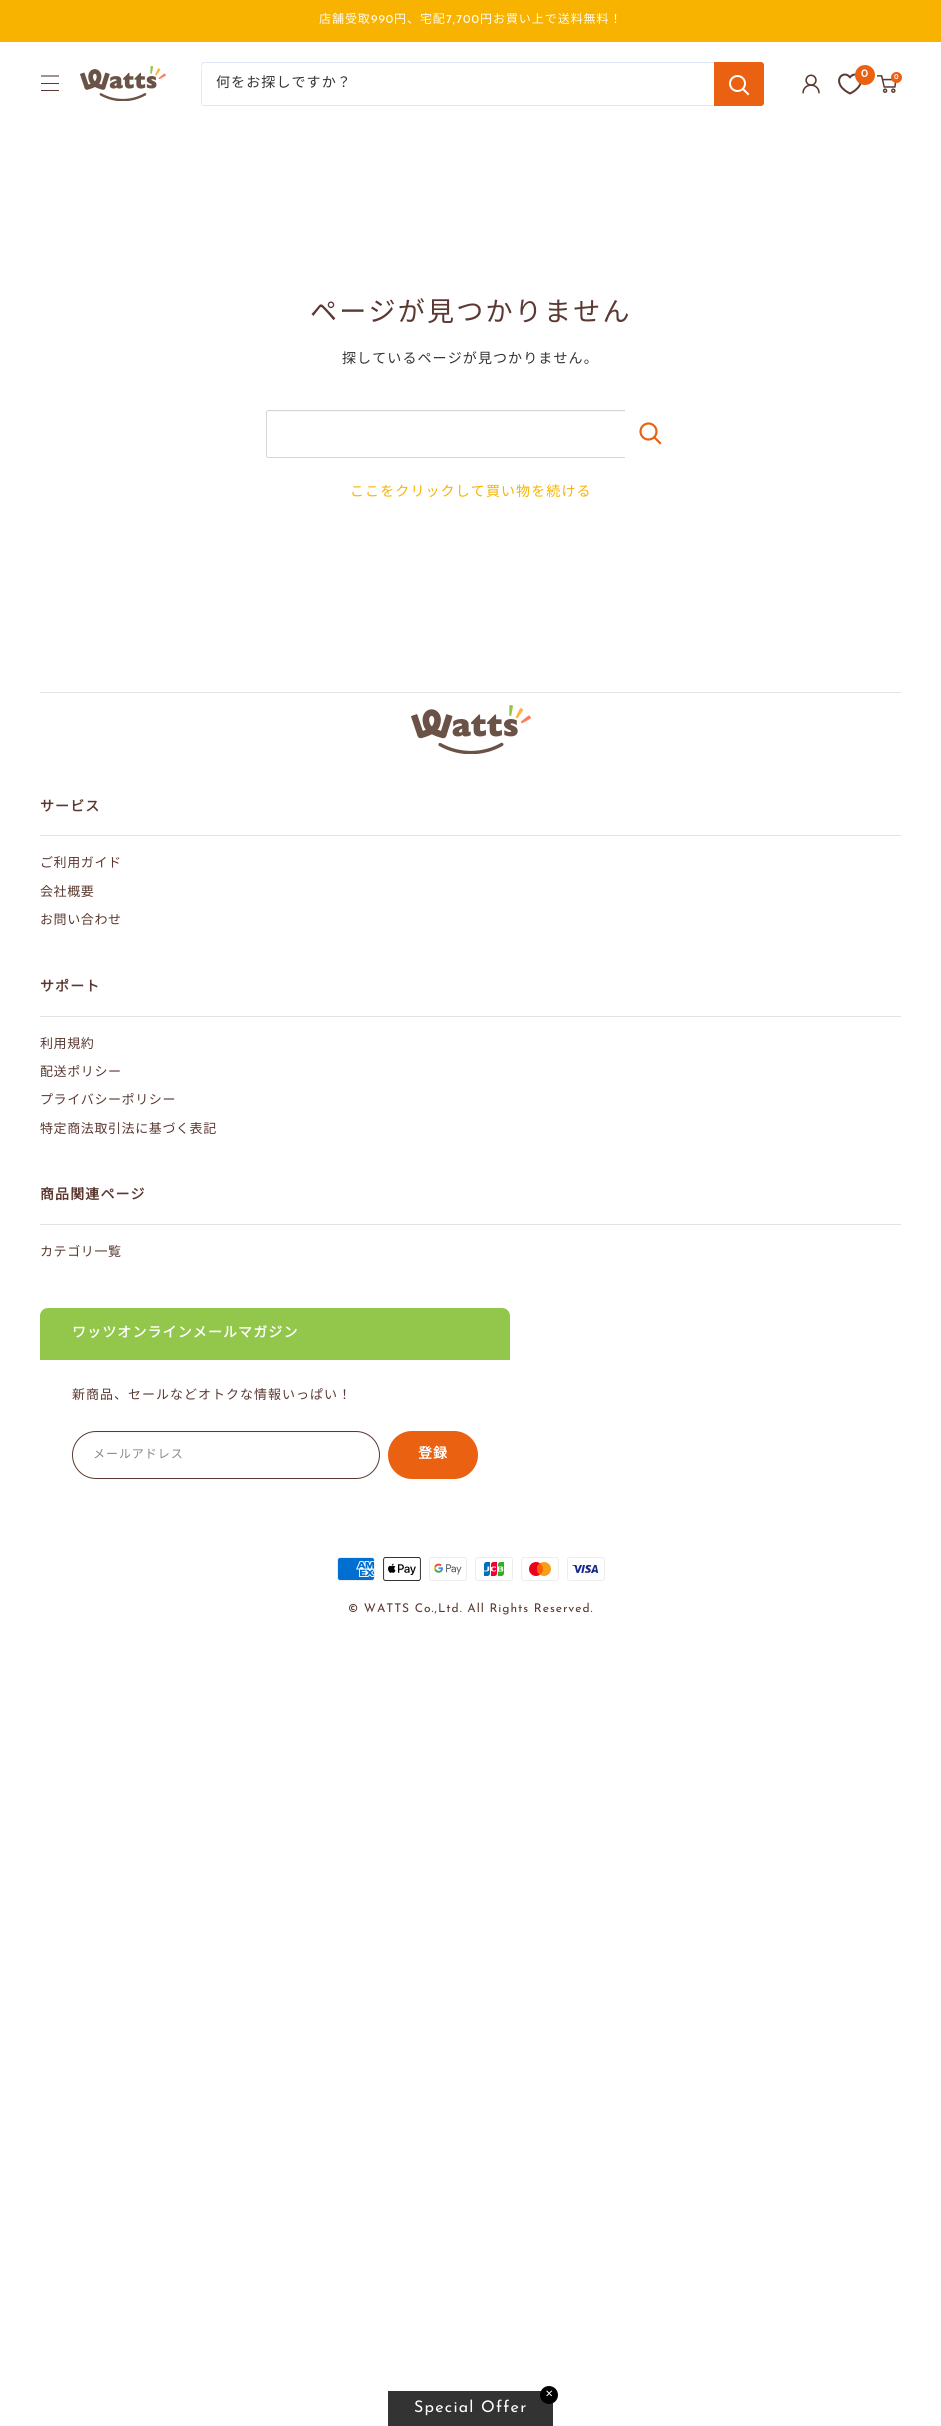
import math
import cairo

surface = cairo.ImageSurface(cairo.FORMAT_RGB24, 941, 2426)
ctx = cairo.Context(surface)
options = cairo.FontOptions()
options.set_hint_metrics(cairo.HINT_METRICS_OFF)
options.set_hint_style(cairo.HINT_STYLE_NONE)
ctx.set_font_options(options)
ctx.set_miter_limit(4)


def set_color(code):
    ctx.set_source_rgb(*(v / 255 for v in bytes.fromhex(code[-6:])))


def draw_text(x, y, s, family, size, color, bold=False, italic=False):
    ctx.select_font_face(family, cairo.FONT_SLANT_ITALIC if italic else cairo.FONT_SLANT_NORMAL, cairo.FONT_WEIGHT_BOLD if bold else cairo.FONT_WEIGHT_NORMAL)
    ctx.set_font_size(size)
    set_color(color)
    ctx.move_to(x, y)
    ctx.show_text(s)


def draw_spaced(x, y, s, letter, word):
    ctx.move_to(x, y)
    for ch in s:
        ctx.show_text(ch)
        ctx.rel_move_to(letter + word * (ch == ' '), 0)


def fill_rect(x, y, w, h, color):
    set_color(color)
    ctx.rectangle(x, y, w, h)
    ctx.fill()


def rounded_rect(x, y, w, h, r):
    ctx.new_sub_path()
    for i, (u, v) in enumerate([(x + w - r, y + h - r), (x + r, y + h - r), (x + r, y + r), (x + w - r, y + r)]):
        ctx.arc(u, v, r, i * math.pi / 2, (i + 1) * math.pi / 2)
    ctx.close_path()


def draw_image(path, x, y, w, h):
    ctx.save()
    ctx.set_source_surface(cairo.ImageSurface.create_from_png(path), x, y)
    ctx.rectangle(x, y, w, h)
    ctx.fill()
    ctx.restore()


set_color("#ffffff")
ctx.paint()
fill_rect(0, 0, 941, 41, "#f8b300")
fill_rect(0, 41, 941, 1, "#dfb248")
ctx.select_font_face("Noto Sans JP Thin")
ctx.set_font_size(12)
set_color("#fffcf3")
draw_spaced(319, 23, "店舗受取", 0.95, 0)
ctx.select_font_face("Josefin Sans")
draw_spaced(371, 23, "990", 0.95, 0)
ctx.select_font_face("Noto Sans JP Thin")
draw_spaced(394, 23, "円、宅配", 0.95, 0)
ctx.select_font_face("Josefin Sans")
draw_spaced(446, 23, "7,700", 0.95, 0)
ctx.select_font_face("Noto Sans JP Thin")
draw_spaced(480, 23, "円お買い上で送料無料！", 0.95, 0)
draw_image("assets/img1.png", 80, 66, 86, 35)
draw_image("assets/img2.png", 838, 73, 24, 22)
set_color("#eb6112")
ctx.arc(865, 75, 10, 0, 2 * math.pi)
ctx.fill()
ctx.select_font_face("Josefin Sans", cairo.FONT_SLANT_NORMAL, cairo.FONT_WEIGHT_BOLD)
ctx.set_font_size(11)
set_color("#ffffff")
draw_spaced(861, 77, "0", 1, 0)
draw_image("assets/img3.png", 802, 74, 18, 20)
draw_image("assets/img4.png", 877, 75, 20, 18)
set_color("#eb6112")
ctx.arc(896.5, 77.5, 5.5, 0, 2 * math.pi)
ctx.fill()
ctx.set_font_size(7)
set_color("#ffffff")
draw_spaced(894, 79, "0", 1, 0)
ctx.new_path()
ctx.move_to(41, 76)
ctx.line_to(59, 76)
set_color("#5b3932")
ctx.set_line_width(1.1)
ctx.stroke()
fill_rect(41, 83, 18, 1, "#5b3932")
fill_rect(41, 90, 18, 1, "#5b3932")
set_color("#e3e7fa")
ctx.new_path()
ctx.move_to(202, 105)
ctx.curve_to(202, 106, 203, 106, 204, 106)
ctx.line_to(761, 106)
ctx.curve_to(763, 106, 764, 105, 764, 103)
ctx.line_to(764, 65)
ctx.curve_to(764, 64, 764, 63, 763, 63)
ctx.line_to(763, 96)
ctx.curve_to(763, 98, 765, 105, 760, 105)
ctx.close_path()
ctx.fill()
ctx.new_path()
ctx.move_to(205, 63)
ctx.line_to(763, 63)
ctx.curve_to(763, 62, 762, 62, 761, 62)
ctx.line_to(204, 62)
ctx.curve_to(202, 62, 201, 63, 201, 65)
ctx.line_to(201, 103)
ctx.curve_to(201, 104, 201, 105, 202, 105)
ctx.line_to(202, 72)
ctx.curve_to(202, 70, 200, 63, 205, 63)
ctx.close_path()
ctx.fill()
ctx.select_font_face("Noto Sans JP Thin")
ctx.set_font_size(14)
set_color("#333333")
draw_spaced(216, 87, "何をお探しですか？", 1.1, 0)
set_color("#eb6112")
ctx.new_path()
ctx.move_to(714, 62)
ctx.line_to(761, 62)
ctx.curve_to(762.5, 62, 764, 63.5, 764, 65)
ctx.line_to(764, 103)
ctx.curve_to(764, 104.5, 762.5, 106, 761, 106)
ctx.line_to(714, 106)
ctx.close_path()
ctx.fill()
ctx.new_path()
ctx.move_to(748, 94)
ctx.line_to(743, 89)
set_color("#ffffff")
ctx.set_line_width(2)
ctx.set_line_cap(cairo.LINE_CAP_SQUARE)
ctx.stroke()
ctx.arc(737.5, 83.5, 7.5, 0, 2 * math.pi)
ctx.set_line_cap(cairo.LINE_CAP_BUTT)
ctx.stroke()
ctx.set_font_size(27)
set_color("#5b3932")
draw_spaced(310, 321, "ページが見つかりません", 2.25, 0)
ctx.set_font_size(14)
set_color("#333333")
draw_spaced(342, 363, "探しているページが見つかりません。", 1.1, 0)
set_color("#f8f8f8")
ctx.new_path()
ctx.move_to(268, 412)
ctx.line_to(625, 412)
ctx.line_to(625, 411)
ctx.line_to(268, 411)
ctx.curve_to(267, 411, 267, 412, 267, 413)
ctx.curve_to(267, 412, 267, 412, 268, 412)
ctx.close_path()
ctx.fill()
fill_rect(267, 410, 358, 1, "#d4d6d8")
fill_rect(267, 457, 358, 1, "#d4d6d8")
fill_rect(266, 411, 1, 46, "#d4d6d8")
ctx.new_path()
ctx.move_to(660, 443)
ctx.line_to(654.5, 437.5)
set_color("#eb6112")
ctx.set_line_width(2.2)
ctx.set_line_cap(cairo.LINE_CAP_SQUARE)
ctx.stroke()
ctx.arc(648.5, 431.5, 8, 0, 2 * math.pi)
ctx.set_line_cap(cairo.LINE_CAP_BUTT)
ctx.stroke()
set_color("#f8b300")
draw_spaced(350, 496, "ここをクリックして買い物を続ける", 1.1, 0)
fill_rect(40, 692, 861, 1, "#e1e3e4")
draw_image("assets/img5.png", 411, 705, 120, 49)
fill_rect(40, 835, 861, 1, "#e6e1e0")
ctx.select_font_face("Noto Sans JP", cairo.FONT_SLANT_NORMAL, cairo.FONT_WEIGHT_BOLD)
set_color("#5b3932")
draw_spaced(40, 811, "サービス", 1.1, 0)
ctx.select_font_face("Noto Sans JP Thin")
ctx.set_font_size(13)
draw_spaced(40, 867, "ご利用ガイド", 0.6, 0)
draw_spaced(40, 896, "会社概要", 0.6, 0)
draw_spaced(40, 924, "お問い合わせ", 0.6, 0)
fill_rect(40, 1016, 861, 1, "#e6e1e0")
ctx.select_font_face("Noto Sans JP", cairo.FONT_SLANT_NORMAL, cairo.FONT_WEIGHT_BOLD)
ctx.set_font_size(14)
set_color("#5b3932")
draw_spaced(40, 991, "サポート", 1.1, 0)
ctx.select_font_face("Noto Sans JP Thin")
ctx.set_font_size(13)
draw_spaced(40, 1048, "利用規約", 0.6, 0)
draw_spaced(40, 1076, "配送ポリシー", 0.6, 0)
draw_spaced(40, 1104, "プライバシーポリシー", 0.6, 0)
draw_spaced(40, 1133, "特定商法取引法に基づく表記", 0.6, 0)
fill_rect(40, 1224, 861, 1, "#e6e1e0")
ctx.select_font_face("Noto Sans JP", cairo.FONT_SLANT_NORMAL, cairo.FONT_WEIGHT_BOLD)
ctx.set_font_size(14)
set_color("#5b3932")
draw_spaced(40, 1199, "商品関連ページ", 1.1, 0)
ctx.select_font_face("Noto Sans JP Thin")
ctx.set_font_size(13)
draw_spaced(40, 1256, "カテゴリ一覧", 0.6, 0)
set_color("#93c74c")
ctx.new_path()
ctx.move_to(48, 1308)
ctx.line_to(502, 1308)
ctx.curve_to(506.5, 1308, 510, 1311.5, 510, 1316)
ctx.line_to(510, 1360)
ctx.line_to(40, 1360)
ctx.line_to(40, 1316)
ctx.curve_to(40, 1311.5, 43.5, 1308, 48, 1308)
ctx.close_path()
ctx.fill()
ctx.select_font_face("Noto Sans JP", cairo.FONT_SLANT_NORMAL, cairo.FONT_WEIGHT_BOLD)
ctx.set_font_size(14)
set_color("#ffffff")
draw_spaced(72, 1337, "ワッツオンラインメールマガジン", 1.1, 0)
ctx.select_font_face("Noto Sans JP Thin")
ctx.set_font_size(13)
set_color("#5b3932")
draw_spaced(72, 1399, "新商品、セールなどオトクな情報いっぱい！", 1, 0)
set_color("#f8f8f8")
ctx.new_path()
ctx.move_to(96, 1433)
ctx.line_to(356, 1433)
ctx.curve_to(369, 1433, 379, 1443, 379, 1455)
ctx.curve_to(380, 1422, 329, 1432, 313, 1432)
ctx.line_to(139, 1432)
ctx.curve_to(123, 1432, 72, 1422, 73, 1455)
ctx.curve_to(73, 1443, 83, 1433, 96, 1433)
ctx.close_path()
ctx.fill()
rounded_rect(72.5, 1431.5, 307, 47, 23.5)
set_color("#5b3932")
ctx.set_line_width(1)
ctx.stroke()
ctx.set_font_size(12)
set_color("#888888")
draw_spaced(93, 1458, "メールアドレス", 0.95, 0)
set_color("#eb6112")
rounded_rect(388, 1431, 90, 48, 24)
ctx.fill()
ctx.select_font_face("Noto Sans JP", cairo.FONT_SLANT_NORMAL, cairo.FONT_WEIGHT_BOLD)
ctx.set_font_size(14)
set_color("#ffffff")
draw_spaced(418, 1458, "登録", 1.1, 0)
draw_image("assets/img6.png", 337, 1557, 38, 24)
draw_image("assets/img7.png", 383, 1557, 38, 24)
draw_image("assets/img8.png", 429, 1557, 38, 24)
draw_image("assets/img9.png", 475, 1557, 38, 24)
draw_image("assets/img10.png", 521, 1557, 38, 24)
draw_image("assets/img11.png", 567, 1557, 38, 24)
ctx.select_font_face("Josefin Sans")
ctx.set_font_size(12)
set_color("#5b3932")
draw_spaced(348, 1612, "© WATTS Co.,Ltd. All Rights Reserved.", 0.95, 0)
fill_rect(388, 2391, 165, 35, "#333333")
set_color("#000000")
ctx.new_path()
ctx.arc(549, 2395, 9, 0, 2 * math.pi)
ctx.fill()
draw_text(545, 2397, "✕", "DejaVu Sans", 10, "#ffffff")
ctx.select_font_face("Josefin Sans")
ctx.set_font_size(16)
draw_spaced(414, 2412, "Special Offer", 1.25, 0)
surface.write_to_png("output.png")
